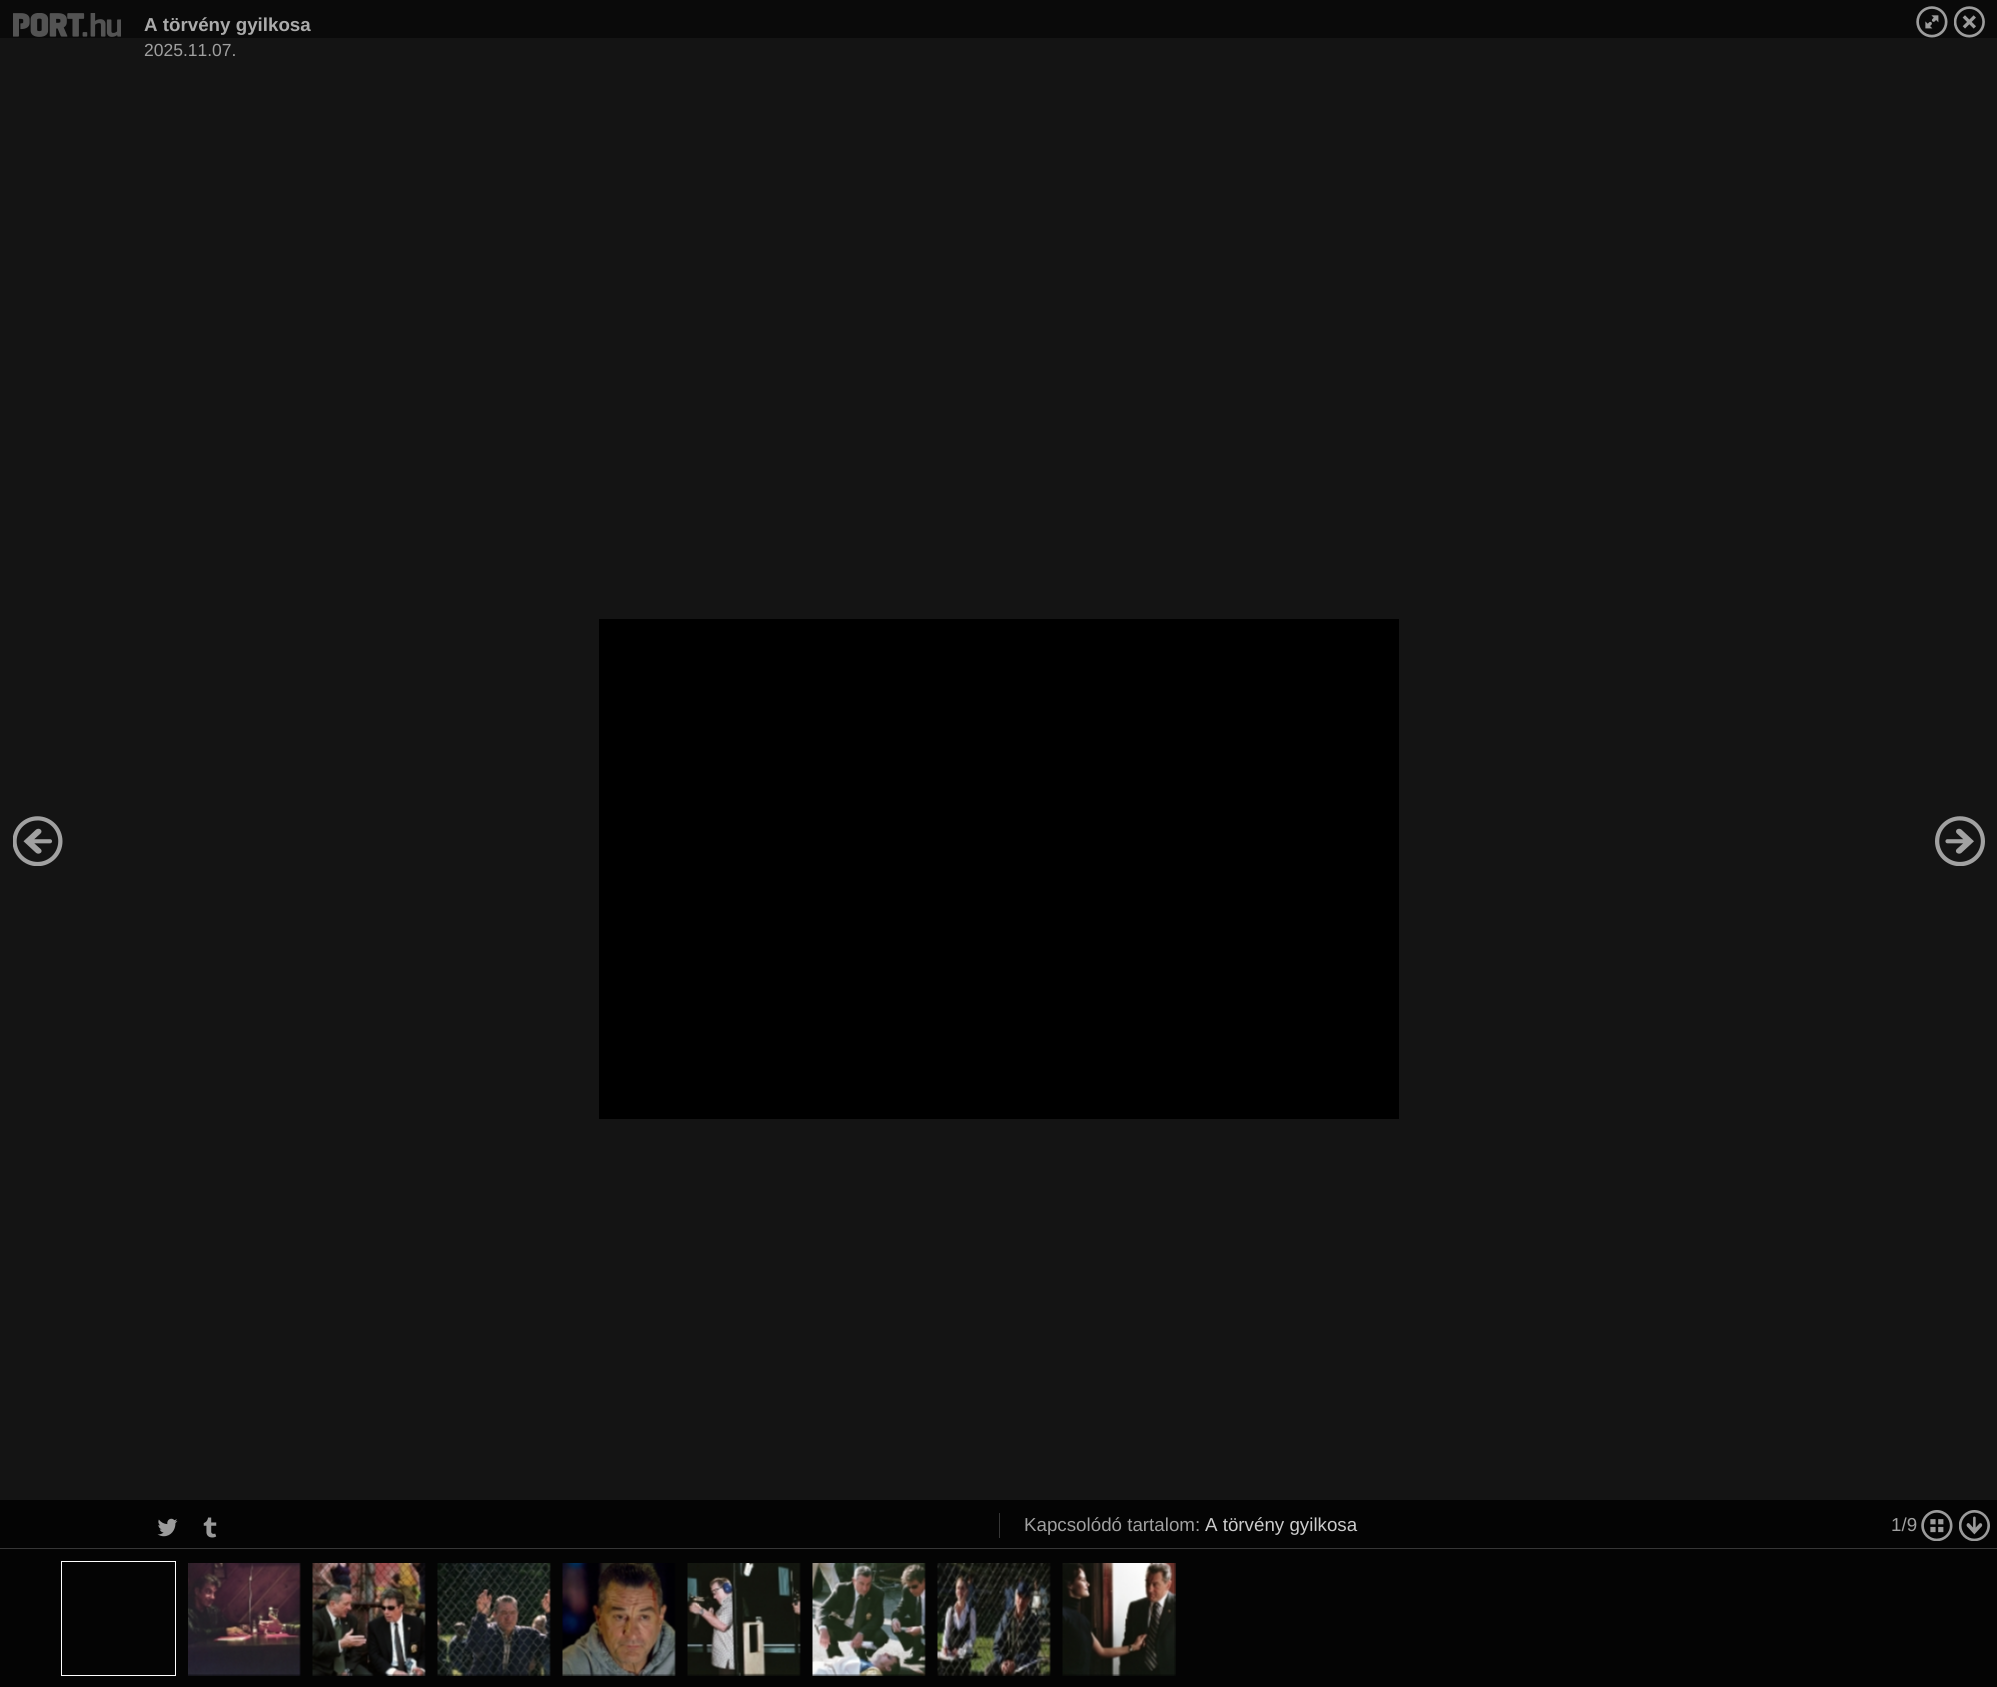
import math
import cairo

surface = cairo.ImageSurface(cairo.FORMAT_RGB24, 1997, 1687)
ctx = cairo.Context(surface)
options = cairo.FontOptions()
options.set_hint_metrics(cairo.HINT_METRICS_OFF)
options.set_hint_style(cairo.HINT_STYLE_NONE)
ctx.set_font_options(options)
ctx.set_miter_limit(4)


def set_color(code):
    ctx.set_source_rgb(*(v / 255 for v in bytes.fromhex(code[-6:])))


def draw_text(x, y, s, family, size, color, bold=False, italic=False):
    ctx.select_font_face(family, cairo.FONT_SLANT_ITALIC if italic else cairo.FONT_SLANT_NORMAL, cairo.FONT_WEIGHT_BOLD if bold else cairo.FONT_WEIGHT_NORMAL)
    ctx.set_font_size(size)
    set_color(color)
    ctx.move_to(x, y)
    ctx.show_text(s)


def fill_rect(x, y, w, h, color):
    set_color(color)
    ctx.rectangle(x, y, w, h)
    ctx.fill()


def draw_image(path, x, y, w, h):
    ctx.save()
    ctx.set_source_surface(cairo.ImageSurface.create_from_png(path), x, y)
    ctx.rectangle(x, y, w, h)
    ctx.fill()
    ctx.restore()


set_color("#141414")
ctx.paint()
fill_rect(0, 0, 1997, 38, "#0a0a0a")
draw_image("assets/img1.png", 13, 13, 108, 24)
draw_text(144, 31, "A törvény gyilkosa", "Liberation Sans", 18.75, "#ababab", bold=True)
draw_text(144, 56, "2025.11.07.", "Liberation Sans", 17.5, "#a0a0a0")
draw_image("assets/img2.png", 1916, 6, 32, 32)
draw_image("assets/img3.png", 1954, 6, 31, 32)
draw_image("assets/img4.png", 13, 816, 50, 50)
fill_rect(599, 619, 800, 500, "#000000")
draw_image("assets/img5.png", 1935, 816, 50, 50)
fill_rect(0, 1500, 1997, 187, "#040404")
draw_image("assets/img6.png", 157, 1518, 21, 19)
draw_image("assets/img7.png", 203, 1517, 14, 21)
fill_rect(999, 1513, 1, 25, "#363636")
draw_text(1024, 1531, "Kapcsolódó tartalom:", "Liberation Sans", 18.75, "#a0a0a0")
draw_text(1205, 1531, "A törvény gyilkosa", "Liberation Sans", 18.75, "#cccccc")
draw_text(1891, 1531, "1/9", "Liberation Sans", 18.75, "#a0a0a0")
ctx.rectangle(61.5, 1561.5, 114, 114)
set_color("#ffffff")
ctx.set_line_width(1)
ctx.stroke()
draw_image("assets/img8.png", 188, 1563, 113, 113)
draw_image("assets/img9.png", 312, 1563, 114, 113)
draw_image("assets/img10.png", 437, 1563, 114, 113)
draw_image("assets/img11.png", 562, 1563, 114, 113)
draw_image("assets/img12.png", 687, 1563, 114, 113)
draw_image("assets/img13.png", 812, 1563, 114, 113)
draw_image("assets/img14.png", 937, 1563, 114, 113)
draw_image("assets/img15.png", 1062, 1563, 114, 113)
draw_image("assets/img16.png", 1921, 1510, 32, 31)
draw_image("assets/img17.png", 1959, 1510, 31, 31)
fill_rect(0, 1548, 1997, 1, "#363636")
surface.write_to_png("output.png")
